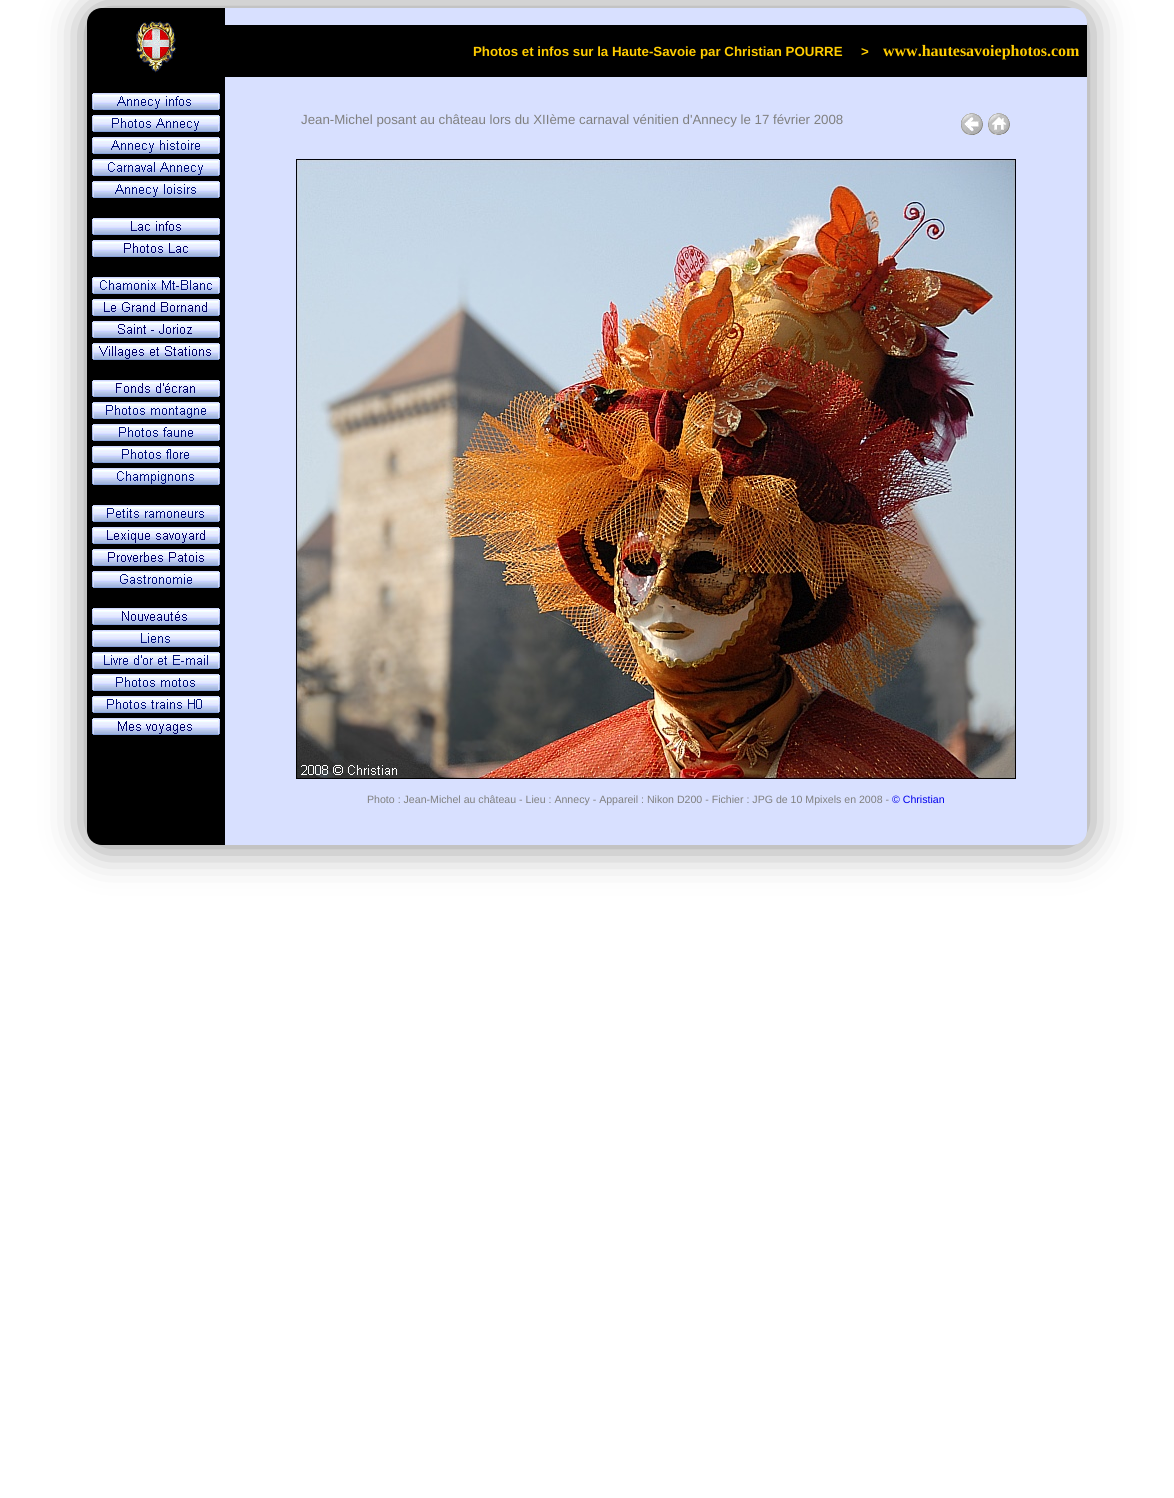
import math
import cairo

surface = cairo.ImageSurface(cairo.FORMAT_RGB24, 1174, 1498)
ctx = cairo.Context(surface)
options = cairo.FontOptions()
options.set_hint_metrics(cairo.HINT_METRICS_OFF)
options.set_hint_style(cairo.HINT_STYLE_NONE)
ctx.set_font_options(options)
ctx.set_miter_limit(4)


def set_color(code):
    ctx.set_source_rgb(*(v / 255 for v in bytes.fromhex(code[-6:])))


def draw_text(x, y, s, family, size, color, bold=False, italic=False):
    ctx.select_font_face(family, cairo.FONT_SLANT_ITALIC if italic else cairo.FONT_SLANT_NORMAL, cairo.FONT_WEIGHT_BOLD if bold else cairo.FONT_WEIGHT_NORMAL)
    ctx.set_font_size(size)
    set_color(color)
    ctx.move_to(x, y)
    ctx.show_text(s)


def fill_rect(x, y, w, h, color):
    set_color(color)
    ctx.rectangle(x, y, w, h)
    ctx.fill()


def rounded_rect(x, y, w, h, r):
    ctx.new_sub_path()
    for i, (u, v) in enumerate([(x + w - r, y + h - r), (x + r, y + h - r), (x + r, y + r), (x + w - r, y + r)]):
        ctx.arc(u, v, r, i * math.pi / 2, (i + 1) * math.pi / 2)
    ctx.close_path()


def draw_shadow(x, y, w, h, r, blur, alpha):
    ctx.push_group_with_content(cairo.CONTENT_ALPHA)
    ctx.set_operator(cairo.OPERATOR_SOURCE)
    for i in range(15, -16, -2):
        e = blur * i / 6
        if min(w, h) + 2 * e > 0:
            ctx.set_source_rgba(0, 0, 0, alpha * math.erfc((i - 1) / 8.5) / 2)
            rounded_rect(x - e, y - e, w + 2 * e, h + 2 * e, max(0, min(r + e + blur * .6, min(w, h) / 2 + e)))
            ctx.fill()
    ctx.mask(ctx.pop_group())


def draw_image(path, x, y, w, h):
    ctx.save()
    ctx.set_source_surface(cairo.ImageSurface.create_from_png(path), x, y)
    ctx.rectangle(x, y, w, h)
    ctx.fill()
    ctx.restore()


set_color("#ffffff")
ctx.paint()
set_color("#888888")
draw_shadow(87, 9, 1000, 837, 15, 20, 1)
set_color("#000000")
ctx.new_path()
ctx.move_to(102, 8)
ctx.line_to(225, 8)
ctx.line_to(225, 77)
ctx.line_to(87, 77)
ctx.line_to(87, 23)
ctx.curve_to(87, 14.5, 93.5, 8, 102, 8)
ctx.close_path()
ctx.fill()
draw_image("assets/img1.png", 136, 21, 41, 52)
set_color("#d8e0ff")
ctx.new_path()
ctx.move_to(225, 8)
ctx.line_to(1072, 8)
ctx.curve_to(1080.5, 8, 1087, 14.5, 1087, 23)
ctx.line_to(1087, 25)
ctx.line_to(225, 25)
ctx.close_path()
ctx.fill()
fill_rect(225, 25, 862, 52, "#000000")
draw_text(473, 56, "Photos et infos sur la Haute-Savoie par Christian POURRE     >", "Liberation Sans", 13.3, "#ffcc00", bold=True)
draw_text(883, 56, "www.hautesavoiephotos.com", "Liberation Serif", 16, "#ffcc00", bold=True)
set_color("#000000")
ctx.new_path()
ctx.move_to(87, 77)
ctx.line_to(225, 77)
ctx.line_to(225, 845)
ctx.line_to(102, 845)
ctx.curve_to(93.5, 845, 87, 838.5, 87, 830)
ctx.close_path()
ctx.fill()
draw_image("assets/img2.png", 92, 93, 128, 17)
draw_image("assets/img3.png", 92, 115, 128, 17)
draw_image("assets/img4.png", 92, 137, 128, 17)
draw_image("assets/img5.png", 92, 159, 128, 17)
draw_image("assets/img6.png", 92, 181, 128, 17)
draw_image("assets/img7.png", 92, 218, 128, 17)
draw_image("assets/img8.png", 92, 240, 128, 17)
draw_image("assets/img9.png", 92, 277, 128, 17)
draw_image("assets/img10.png", 92, 299, 128, 17)
draw_image("assets/img11.png", 92, 321, 128, 17)
draw_image("assets/img12.png", 92, 343, 128, 17)
draw_image("assets/img13.png", 92, 380, 128, 17)
draw_image("assets/img14.png", 92, 402, 128, 17)
draw_image("assets/img15.png", 92, 424, 128, 17)
draw_image("assets/img16.png", 92, 446, 128, 17)
draw_image("assets/img17.png", 92, 468, 128, 17)
draw_image("assets/img18.png", 92, 505, 128, 17)
draw_image("assets/img19.png", 92, 527, 128, 17)
draw_image("assets/img20.png", 92, 549, 128, 17)
draw_image("assets/img21.png", 92, 571, 128, 17)
draw_image("assets/img22.png", 92, 608, 128, 17)
draw_image("assets/img23.png", 92, 630, 128, 17)
draw_image("assets/img24.png", 92, 652, 128, 17)
draw_image("assets/img25.png", 92, 674, 128, 17)
draw_image("assets/img26.png", 92, 696, 128, 17)
draw_image("assets/img27.png", 92, 718, 128, 17)
set_color("#d8e0ff")
ctx.new_path()
ctx.move_to(225, 77)
ctx.line_to(1087, 77)
ctx.line_to(1087, 830)
ctx.curve_to(1087, 838.5, 1080.5, 845, 1072, 845)
ctx.line_to(225, 845)
ctx.close_path()
ctx.fill()
draw_text(301, 124, "Jean-Michel posant au château lors du XIIème carnaval vénitien d'Annecy le 17 février 2008", "Liberation Sans", 13.3, "#808080")
draw_image("assets/img28.png", 961, 113, 22, 22)
draw_image("assets/img29.png", 988, 113, 22, 22)
draw_image("assets/img30.png", 296, 159, 720, 620)
draw_text(367, 803, "Photo : Jean-Michel au château - Lieu : Annecy - Appareil : Nikon D200 - Fichier : JPG de 10 Mpixels en 2008 -", "Liberation Sans", 10.6, "#808080")
draw_text(892, 803, "© Christian", "Liberation Sans", 10.6, "#0000ee")
surface.write_to_png("output.png")
